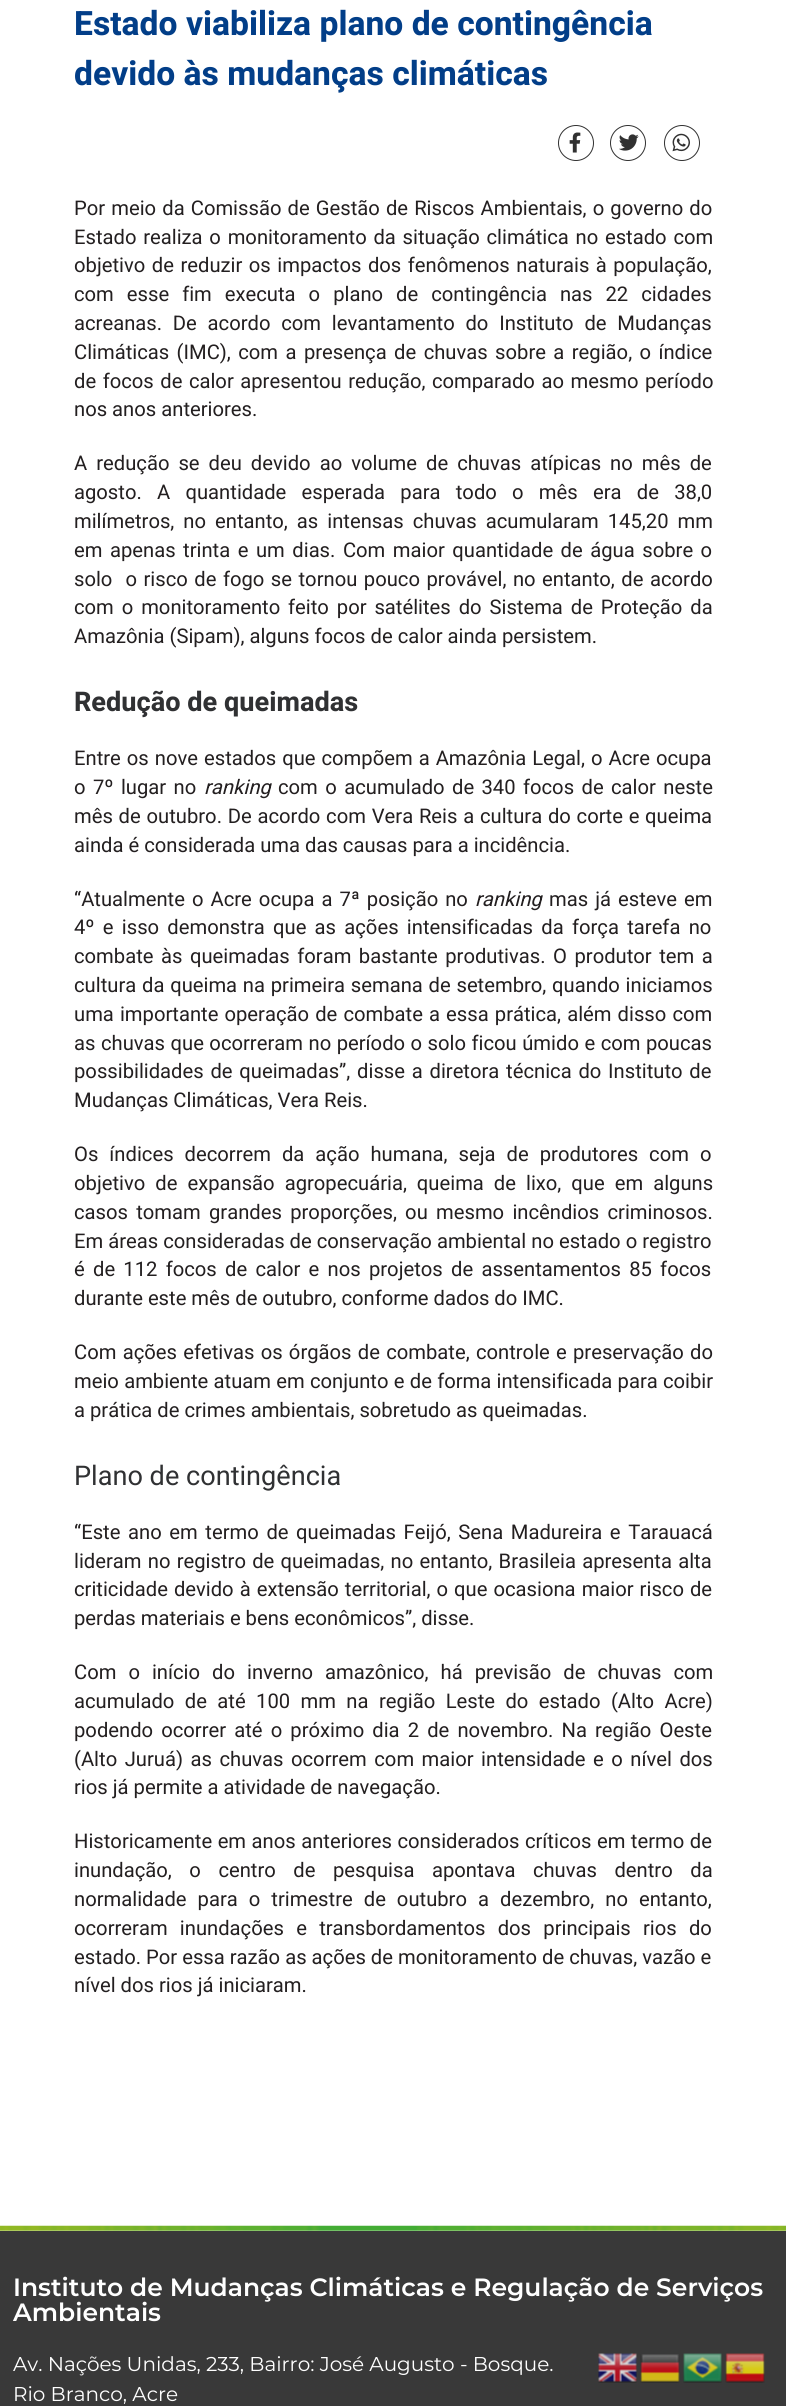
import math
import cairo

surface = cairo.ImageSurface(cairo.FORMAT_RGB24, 786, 2406)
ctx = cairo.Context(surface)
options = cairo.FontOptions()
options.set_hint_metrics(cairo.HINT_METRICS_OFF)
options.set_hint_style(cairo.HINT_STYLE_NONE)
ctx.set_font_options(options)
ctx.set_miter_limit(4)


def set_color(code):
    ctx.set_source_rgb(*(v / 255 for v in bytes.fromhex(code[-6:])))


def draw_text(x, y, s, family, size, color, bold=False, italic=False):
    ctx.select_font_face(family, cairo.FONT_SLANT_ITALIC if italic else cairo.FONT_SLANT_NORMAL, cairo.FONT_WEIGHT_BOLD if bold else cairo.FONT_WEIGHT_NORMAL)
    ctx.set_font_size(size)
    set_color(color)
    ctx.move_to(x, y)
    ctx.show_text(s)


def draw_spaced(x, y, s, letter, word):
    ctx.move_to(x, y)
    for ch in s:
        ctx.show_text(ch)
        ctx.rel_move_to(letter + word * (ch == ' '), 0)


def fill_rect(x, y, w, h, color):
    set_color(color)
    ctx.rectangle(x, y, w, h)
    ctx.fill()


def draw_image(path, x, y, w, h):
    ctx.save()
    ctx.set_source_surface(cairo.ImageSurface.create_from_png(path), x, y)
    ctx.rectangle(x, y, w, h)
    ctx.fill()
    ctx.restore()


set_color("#ffffff")
ctx.paint()
draw_text(74, 35, "Estado viabiliza plano de contingência", "Heebo", 33.6, "#023e88", bold=True)
draw_text(74, 85, "devido às mudanças climáticas", "Heebo", 33.6, "#023e88", bold=True)
ctx.new_path()
ctx.arc(576, 143, 17.5, 0, 2 * math.pi)
set_color("#313131")
ctx.set_line_width(1)
ctx.stroke()
draw_image("assets/img1.png", 569, 132, 12, 21)
ctx.arc(628, 143, 17.5, 0, 2 * math.pi)
ctx.stroke()
draw_image("assets/img2.png", 619, 134, 20, 17)
ctx.arc(682, 143, 17.5, 0, 2 * math.pi)
ctx.stroke()
draw_image("assets/img3.png", 672, 133, 18, 19)
ctx.select_font_face("Heebo")
ctx.set_font_size(20.2)
set_color("#231f20")
draw_spaced(74, 215, "Por meio da Comissão de Gestão de Riscos Ambientais, o governo do", 0, 1.1)
draw_spaced(74, 244, "Estado realiza o monitoramento da situação climática no estado com", 0, 1.75)
draw_spaced(74, 272, "objetivo de reduzir os impactos dos fenômenos naturais à população,", 0, 1.5)
draw_spaced(74, 301, "com esse fim executa o plano de contingência nas 22 cidades", 0, 8)
draw_spaced(74, 330, "acreanas. De acordo com levantamento do Instituto de Mudanças", 0, 5.75)
draw_spaced(74, 359, "Climáticas (IMC), com a presença de chuvas sobre a região, o índice", 0, 2.4)
draw_spaced(74, 388, "de focos de calor apresentou redução, comparado ao mesmo período", 0, 1.5)
draw_text(74, 416, "nos anos anteriores.", "Heebo", 20.2, "#231f20")
draw_spaced(74, 470, "A redução se deu devido ao volume de chuvas atípicas no mês de", 0, 4)
draw_spaced(74, 499, "agosto. A quantidade esperada para todo o mês era de 38,0", 0, 10.25)
draw_spaced(74, 528, "milímetros, no entanto, as intensas chuvas acumularam 145,20 mm", 0, 4)
draw_spaced(74, 557, "em apenas trinta e um dias. Com maior quantidade de água sobre o", 0, 2.5)
draw_spaced(74, 586, "solo  o risco de fogo se tornou pouco provável, no entanto, de acordo", 0, 1.5)
draw_spaced(74, 614, "com o monitoramento feito por satélites do Sistema de Proteção da", 0, 2.9)
draw_text(74, 643, "Amazônia (Sipam), alguns focos de calor ainda persistem.", "Heebo", 20.2, "#231f20")
draw_text(74, 711, "Redução de queimadas", "Heebo", 27.1, "#303133", bold=True)
ctx.select_font_face("Heebo")
ctx.set_font_size(20.2)
set_color("#231f20")
draw_spaced(74, 765, "Entre os nove estados que compõem a Amazônia Legal, o Acre ocupa", 0, 1)
draw_spaced(74, 794, "o 7º lugar no", 0, 2.4)
draw_text(204, 794, "ranking", "Heebo", 20.2, "#231f20", italic=True)
ctx.select_font_face("Heebo")
draw_spaced(278, 794, "com o acumulado de 340 focos de calor neste", 0, 2.4)
draw_spaced(74, 823, "mês de outubro. De acordo com Vera Reis a cultura do corte e queima", 0, 0.75)
draw_text(74, 852, "ainda é considerada uma das causas para a incidência.", "Heebo", 20.2, "#231f20")
draw_spaced(74, 906, "“Atualmente o Acre ocupa a 7ª posição no", 0, 2)
draw_text(475, 906, "ranking", "Heebo", 20.2, "#231f20", italic=True)
ctx.select_font_face("Heebo")
draw_spaced(549, 906, "mas já esteve em", 0, 2)
draw_spaced(74, 934, "4º e isso demonstra que as ações intensificadas da força tarefa no", 0, 3.25)
draw_spaced(74, 963, "combate às queimadas foram bastante produtivas. O produtor tem a", 0, 2.5)
draw_spaced(74, 992, "cultura da queima na primeira semana de setembro, quando iniciamos", 0, 0.75)
draw_spaced(74, 1021, "uma importante operação de combate a essa prática, além disso com", 0, 1.1)
draw_spaced(74, 1050, "as chuvas que ocorreram no período o solo ficou úmido e com poucas", 0, 0.5)
draw_spaced(74, 1078, "possibilidades de queimadas”, disse a diretora técnica do Instituto de", 0, 1.75)
draw_text(74, 1107, "Mudanças Climáticas, Vera Reis.", "Heebo", 20.2, "#231f20")
draw_spaced(74, 1161, "Os índices decorrem da ação humana, seja de produtores com o", 0, 6)
draw_spaced(74, 1190, "objetivo de expansão agropecuária, queima de lixo, que em alguns", 0, 5)
draw_spaced(74, 1219, "casos tomam grandes proporções, ou mesmo incêndios criminosos.", 0, 3.25)
draw_text(74, 1248, "Em áreas consideradas de conservação ambiental no estado o registro", "Heebo", 20.2, "#231f20")
draw_spaced(74, 1276, "é de 112 focos de calor e nos projetos de assentamentos 85 focos", 0, 3.25)
draw_text(74, 1305, "durante este mês de outubro, conforme dados do IMC.", "Heebo", 20.2, "#231f20")
draw_spaced(74, 1359, "Com ações efetivas os órgãos de combate, controle e preservação do", 0, 1.25)
draw_spaced(74, 1388, "meio ambiente atuam em conjunto e de forma intensificada para coibir", 0, 0.25)
draw_text(74, 1417, "a prática de crimes ambientais, sobretudo as queimadas.", "Heebo", 20.2, "#231f20")
draw_text(74, 1485, "Plano de contingência", "Heebo", 27.1, "#303133")
ctx.set_font_size(20.2)
set_color("#231f20")
draw_spaced(74, 1539, "“Este ano em termo de queimadas Feijó, Sena Madureira e Tarauacá", 0, 2.6)
draw_spaced(74, 1568, "lideram no registro de queimadas, no entanto, Brasileia apresenta alta", 0, 1.25)
draw_spaced(74, 1596, "criticidade devido à extensão territorial, o que ocasiona maior risco de", 0, 1)
draw_text(74, 1625, "perdas materiais e bens econômicos”, disse.", "Heebo", 20.2, "#231f20")
draw_spaced(74, 1679, "Com o início do inverno amazônico, há previsão de chuvas com", 0, 7)
draw_spaced(74, 1708, "acumulado de até 100 mm na região Leste do estado (Alto Acre)", 0, 5.4)
draw_spaced(74, 1737, "podendo ocorrer até o próximo dia 2 de novembro. Na região Oeste", 0, 3.1)
draw_spaced(74, 1766, "(Alto Juruá) as chuvas ocorrem com maior intensidade e o nível dos", 0, 2.5)
draw_text(74, 1794, "rios já permite a atividade de navegação.", "Heebo", 20.2, "#231f20")
draw_spaced(74, 1848, "Historicamente em anos anteriores considerados críticos em termo de", 0, 0.5)
draw_spaced(74, 1877, "inundação, o centro de pesquisa apontava chuvas dentro da", 0, 12.5)
draw_spaced(74, 1906, "normalidade para o trimestre de outubro a dezembro, no entanto,", 0, 6)
draw_spaced(74, 1935, "ocorreram inundações e transbordamentos dos principais rios do", 0, 7.25)
draw_text(74, 1964, "estado. Por essa razão as ações de monitoramento de chuvas, vazão e", "Heebo", 20.2, "#231f20")
draw_text(74, 1992, "nível dos rios já iniciaram.", "Heebo", 20.2, "#231f20")
draw_image("assets/img4.png", 0, 2225, 786, 6)
fill_rect(0, 2231, 786, 175, "#393939")
draw_text(13, 2296, "Instituto de Mudanças Climáticas e Regulação de Serviços", "Montserrat SemiBold", 25, "#ffffff")
draw_text(13, 2321, "Ambientais", "Montserrat SemiBold", 25, "#ffffff")
draw_text(13, 2371, "Av. Nações Unidas, 233, Bairro: José Augusto - Bosque.", "Montserrat", 20, "#ffffff")
draw_text(13, 2401, "Rio Branco, Acre", "Montserrat", 20, "#ffffff")
draw_image("assets/img5.png", 598, 2353, 39, 30)
draw_image("assets/img6.png", 640, 2354, 40, 29)
draw_image("assets/img7.png", 683, 2353, 39, 30)
draw_image("assets/img8.png", 725, 2353, 40, 30)
surface.write_to_png("output.png")
